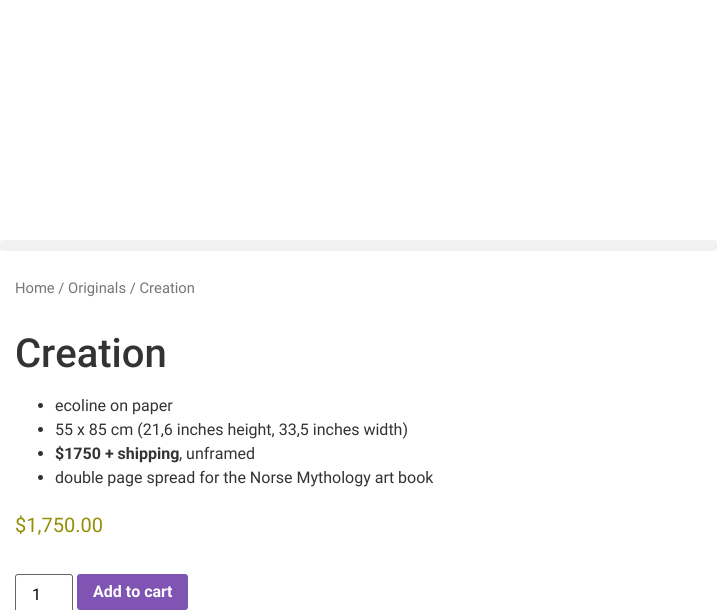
import math
import cairo

surface = cairo.ImageSurface(cairo.FORMAT_RGB24, 717, 610)
ctx = cairo.Context(surface)
options = cairo.FontOptions()
options.set_hint_metrics(cairo.HINT_METRICS_OFF)
options.set_hint_style(cairo.HINT_STYLE_NONE)
ctx.set_font_options(options)
ctx.set_miter_limit(4)


def set_color(code):
    ctx.set_source_rgb(*(v / 255 for v in bytes.fromhex(code[-6:])))


def draw_text(x, y, s, family, size, color, bold=False, italic=False):
    ctx.select_font_face(family, cairo.FONT_SLANT_ITALIC if italic else cairo.FONT_SLANT_NORMAL, cairo.FONT_WEIGHT_BOLD if bold else cairo.FONT_WEIGHT_NORMAL)
    ctx.set_font_size(size)
    set_color(color)
    ctx.move_to(x, y)
    ctx.show_text(s)


def rounded_rect(x, y, w, h, r):
    ctx.new_sub_path()
    for i, (u, v) in enumerate([(x + w - r, y + h - r), (x + r, y + h - r), (x + r, y + r), (x + w - r, y + r)]):
        ctx.arc(u, v, r, i * math.pi / 2, (i + 1) * math.pi / 2)
    ctx.close_path()


set_color("#ffffff")
ctx.paint()
set_color("#f2f2f2")
rounded_rect(0, 240, 717, 11, 3)
ctx.fill()
draw_text(15, 293, "Home / Originals / Creation", "Roboto", 14.75, "#767676")
draw_text(15, 367, "Creation", "Roboto Medium", 40, "#333333")
ctx.new_path()
ctx.arc(40.5, 405.5, 2.5, 0, 2 * math.pi)
ctx.fill()
draw_text(55, 411, "ecoline on paper", "Roboto", 16, "#333333")
ctx.new_path()
ctx.arc(40.5, 429.5, 2.5, 0, 2 * math.pi)
ctx.fill()
draw_text(55, 435, "55 x 85 cm (21,6 inches height, 33,5 inches width)", "Roboto", 16, "#333333")
ctx.new_path()
ctx.arc(40.5, 453.5, 2.5, 0, 2 * math.pi)
ctx.fill()
draw_text(55, 459, "$1750 + shipping", "Roboto", 16, "#333333", bold=True)
draw_text(179, 459, ", unframed", "Roboto", 16, "#333333")
ctx.new_path()
ctx.arc(40.5, 477.5, 2.5, 0, 2 * math.pi)
ctx.fill()
draw_text(55, 483, "double page spread for the Norse Mythology art book", "Roboto", 16, "#333333")
draw_text(15, 532, "$1,750.00", "Roboto", 20, "#958e09")
rounded_rect(15.5, 574.5, 57, 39, 2.5)
set_color("#666666")
ctx.set_line_width(1)
ctx.stroke()
draw_text(32, 600, "1", "Roboto", 16, "#000000")
set_color("#7f54b3")
rounded_rect(77, 574, 111, 36, 3)
ctx.fill()
draw_text(93, 597, "Add to cart", "Roboto", 16, "#ffffff", bold=True)
surface.write_to_png("output.png")
